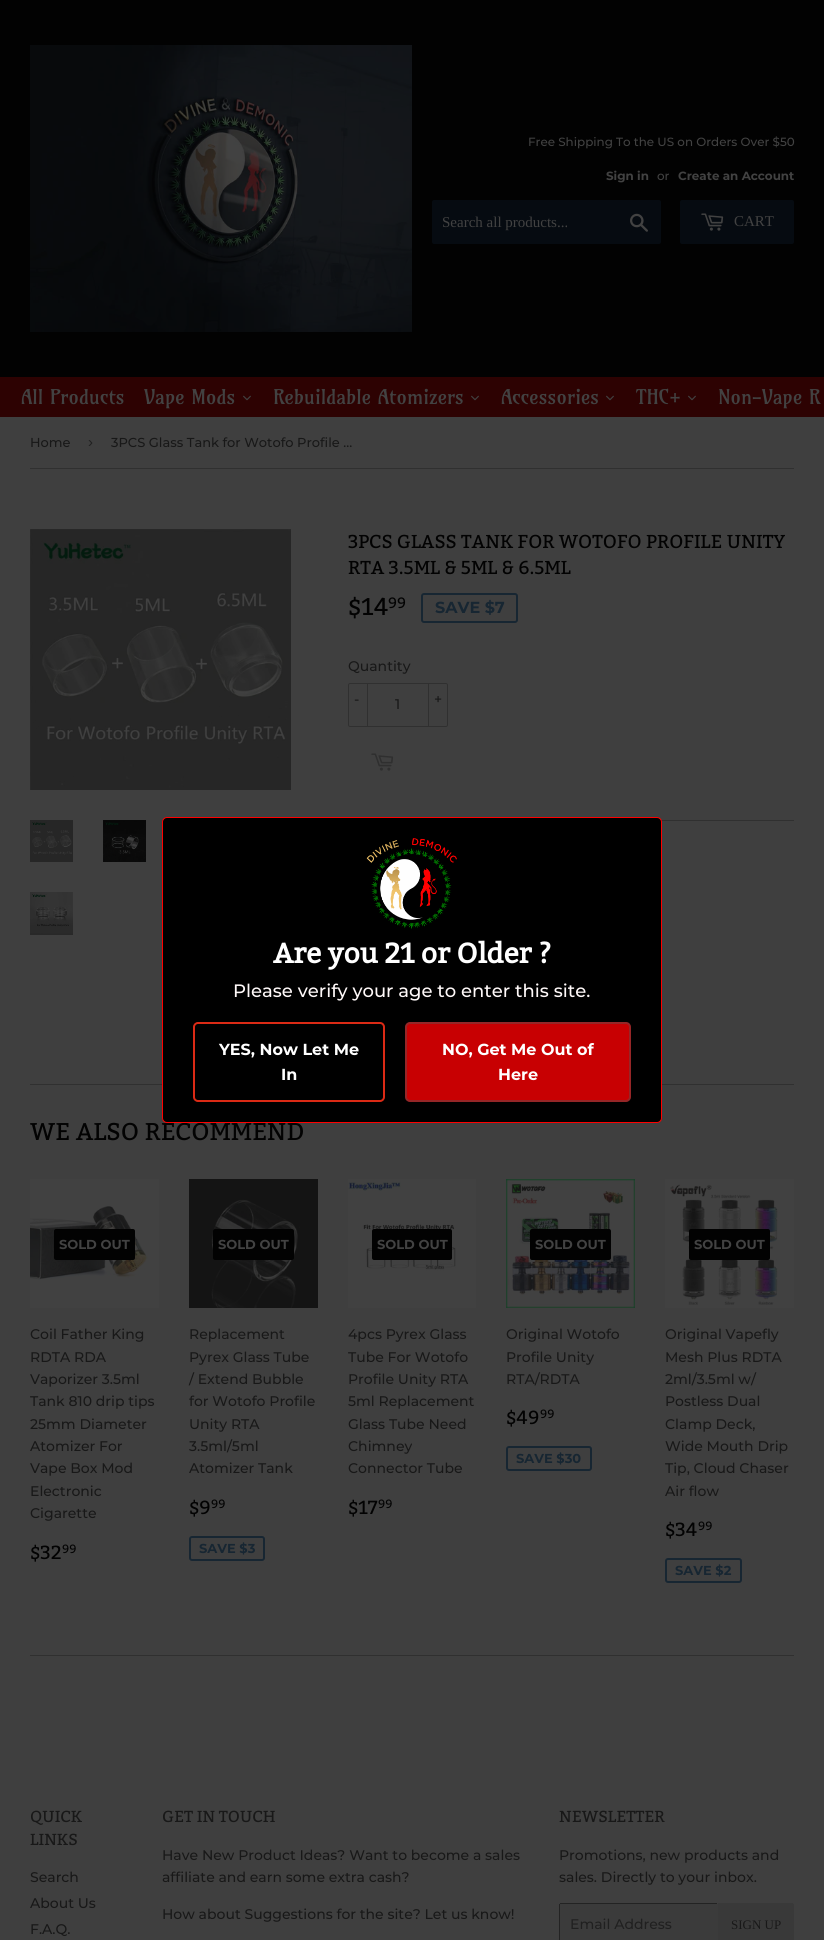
import math
import cairo

surface = cairo.ImageSurface(cairo.FORMAT_RGB24, 824, 1940)
ctx = cairo.Context(surface)
options = cairo.FontOptions()
options.set_hint_metrics(cairo.HINT_METRICS_OFF)
options.set_hint_style(cairo.HINT_STYLE_NONE)
ctx.set_font_options(options)
ctx.set_miter_limit(4)


def set_color(code):
    ctx.set_source_rgb(*(v / 255 for v in bytes.fromhex(code[-6:])))


def draw_text(x, y, s, family, size, color, bold=False, italic=False):
    ctx.select_font_face(family, cairo.FONT_SLANT_ITALIC if italic else cairo.FONT_SLANT_NORMAL, cairo.FONT_WEIGHT_BOLD if bold else cairo.FONT_WEIGHT_NORMAL)
    ctx.set_font_size(size)
    set_color(color)
    ctx.move_to(x, y)
    ctx.show_text(s)


def fill_rect(x, y, w, h, color):
    set_color(color)
    ctx.rectangle(x, y, w, h)
    ctx.fill()


def rounded_rect(x, y, w, h, r):
    ctx.new_sub_path()
    for i, (u, v) in enumerate([(x + w - r, y + h - r), (x + r, y + h - r), (x + r, y + r), (x + w - r, y + r)]):
        ctx.arc(u, v, r, i * math.pi / 2, (i + 1) * math.pi / 2)
    ctx.close_path()


def draw_image(path, x, y, w, h):
    ctx.save()
    ctx.set_source_surface(cairo.ImageSurface.create_from_png(path), x, y)
    ctx.rectangle(x, y, w, h)
    ctx.fill()
    ctx.restore()


set_color("#3f3f3f")
ctx.paint()
fill_rect(0, 0, 824, 377, "#020202")
draw_image("assets/img1.png", 30, 45, 382, 287)
draw_text(528, 146, "Free Shipping To the US on Orders Over $50", "Montserrat Medium", 11.9, "#424242")
draw_text(606, 180, "Sign in", "Montserrat", 11.9, "#424242", bold=True)
draw_text(657, 180, "or", "Montserrat Medium", 11.9, "#424242")
draw_text(678, 180, "Create an Account", "Montserrat", 11.9, "#424242", bold=True)
set_color("#060b11")
rounded_rect(432, 200, 229, 44, 2)
ctx.fill()
draw_text(442, 227, "Search all products...", "Liberation Serif", 15, "#424242")
draw_image("assets/img2.png", 630, 213, 18, 19)
set_color("#060b11")
rounded_rect(680, 200, 114, 44, 2)
ctx.fill()
draw_image("assets/img3.png", 701, 213, 23, 18)
draw_text(734, 226, "CART", "Liberation Serif", 15, "#424242")
fill_rect(0, 377, 824, 40, "#2d0202")
draw_text(21, 404, "All Products", "Amarante", 20, "#424242")
draw_text(144, 404, "Vape Mods", "Amarante", 20, "#424242")
draw_image("assets/img4.png", 243, 395, 8, 6)
draw_text(273, 404, "Rebuildable Atomizers", "Amarante", 20, "#424242")
draw_image("assets/img4.png", 471, 395, 8, 6)
draw_text(501, 404, "Accessories", "Amarante", 20, "#424242")
draw_image("assets/img4.png", 606, 395, 8, 6)
draw_text(636, 404, "THC+", "Amarante", 20, "#424242")
draw_image("assets/img4.png", 688, 395, 8, 6)
draw_text(718, 404, "Non-Vape R", "Amarante", 20, "#424242")
fill_rect(30, 468, 764, 1, "#303030")
draw_text(30, 447, "Home", "Montserrat Medium", 13, "#181818")
draw_text(88, 447, "›", "Liberation Sans", 15, "#202020")
draw_text(111, 447, "3PCS Glass Tank for Wotofo Profile …", "Montserrat Medium", 13, "#181818")
draw_image("assets/img5.png", 30, 529, 261, 261)
draw_image("assets/img6.png", 30, 820, 43, 42)
draw_image("assets/img7.png", 103, 820, 43, 42)
draw_image("assets/img8.png", 30, 892, 43, 43)
draw_text(348, 548, "3PCS GLASS TANK FOR WOTOFO PROFILE UNITY", "Bitter", 18.7, "#020202")
draw_text(348, 574, "RTA 3.5ML & 5ML & 6.5ML", "Bitter", 18.7, "#020202")
draw_text(348, 615, "$14", "Bitter", 24.25, "#020202")
draw_text(388, 608, "99", "Bitter", 15, "#020202")
rounded_rect(422, 594, 95, 28, 2)
set_color("#172632")
ctx.stroke()
draw_text(435, 613, "SAVE $7", "Montserrat", 16, "#172632", bold=True)
draw_text(348, 671, "Quantity", "Montserrat Medium", 14, "#181818")
rounded_rect(348.5, 683.5, 99, 43, 1.5)
set_color("#303030")
ctx.set_line_width(1)
ctx.stroke()
fill_rect(367, 683, 1, 44, "#303030")
draw_text(354, 704, "-", "Montserrat Medium", 14, "#181818")
draw_text(395, 709, "1", "Montserrat Medium", 14, "#181818")
fill_rect(428, 683, 1, 44, "#303030")
draw_text(434, 704, "+", "Montserrat Medium", 14, "#181818")
draw_image("assets/img9.png", 371, 753, 23, 18)
fill_rect(661, 820, 133, 1, "#303030")
fill_rect(30, 1084, 764, 1, "#303030")
draw_text(30, 1140, "WE ALSO RECOMMEND", "Bitter", 24.25, "#020202")
draw_image("assets/img10.png", 30, 1179, 129, 129)
rounded_rect(54, 1229, 81, 31, 2)
ctx.fill()
draw_text(59, 1249, "SOLD OUT", "Montserrat", 13, "#424242", bold=True)
draw_text(30, 1339, "Coil Father King", "Montserrat Medium", 14, "#181818")
draw_text(30, 1362, "RDTA RDA", "Montserrat Medium", 14, "#181818")
draw_text(30, 1384, "Vaporizer 3.5ml", "Montserrat Medium", 14, "#181818")
draw_text(30, 1406, "Tank 810 drip tips", "Montserrat Medium", 14, "#181818")
draw_text(30, 1429, "25mm Diameter", "Montserrat Medium", 14, "#181818")
draw_text(30, 1451, "Atomizer For", "Montserrat Medium", 14, "#181818")
draw_text(30, 1473, "Vape Box Mod", "Montserrat Medium", 14, "#181818")
draw_text(30, 1496, "Electronic", "Montserrat Medium", 14, "#181818")
draw_text(30, 1518, "Cigarette", "Montserrat Medium", 14, "#181818")
draw_text(30, 1559, "$32", "Bitter", 19, "#020202")
draw_text(62, 1553, "99", "Bitter", 12, "#020202")
draw_image("assets/img11.png", 189, 1179, 129, 129)
rounded_rect(213, 1229, 81, 31, 2)
ctx.fill()
draw_text(218, 1249, "SOLD OUT", "Montserrat", 13, "#424242", bold=True)
draw_text(189, 1339, "Replacement", "Montserrat Medium", 14, "#181818")
draw_text(189, 1362, "Pyrex Glass Tube", "Montserrat Medium", 14, "#181818")
draw_text(189, 1384, "/ Extend Bubble", "Montserrat Medium", 14, "#181818")
draw_text(189, 1406, "for Wotofo Profile", "Montserrat Medium", 14, "#181818")
draw_text(189, 1429, "Unity RTA", "Montserrat Medium", 14, "#181818")
draw_text(189, 1451, "3.5ml/5ml", "Montserrat Medium", 14, "#181818")
draw_text(189, 1473, "Atomizer Tank", "Montserrat Medium", 14, "#181818")
draw_text(189, 1514, "$9", "Bitter", 19, "#020202")
draw_text(211, 1508, "99", "Bitter", 12, "#020202")
rounded_rect(190, 1537, 74, 23, 2)
set_color("#172632")
ctx.set_line_width(2)
ctx.stroke()
draw_text(199, 1553, "SAVE $3", "Montserrat", 13, "#172632", bold=True)
draw_image("assets/img12.png", 348, 1179, 128, 129)
set_color("#020202")
rounded_rect(372, 1229, 80, 31, 2)
ctx.fill()
draw_text(377, 1249, "SOLD OUT", "Montserrat", 13, "#424242", bold=True)
draw_text(348, 1339, "4pcs Pyrex Glass", "Montserrat Medium", 14, "#181818")
draw_text(348, 1362, "Tube For Wotofo", "Montserrat Medium", 14, "#181818")
draw_text(348, 1384, "Profile Unity RTA", "Montserrat Medium", 14, "#181818")
draw_text(348, 1406, "5ml Replacement", "Montserrat Medium", 14, "#181818")
draw_text(348, 1429, "Glass Tube Need", "Montserrat Medium", 14, "#181818")
draw_text(348, 1451, "Chimney", "Montserrat Medium", 14, "#181818")
draw_text(348, 1473, "Connector Tube", "Montserrat Medium", 14, "#181818")
draw_text(348, 1514, "$17", "Bitter", 19, "#020202")
draw_text(378, 1508, "99", "Bitter", 12, "#020202")
draw_image("assets/img13.png", 506, 1179, 129, 129)
rounded_rect(530, 1229, 81, 31, 2)
ctx.fill()
draw_text(535, 1249, "SOLD OUT", "Montserrat", 13, "#424242", bold=True)
draw_text(506, 1339, "Original Wotofo", "Montserrat Medium", 14, "#181818")
draw_text(506, 1362, "Profile Unity", "Montserrat Medium", 14, "#181818")
draw_text(506, 1384, "RTA/RDTA", "Montserrat Medium", 14, "#181818")
draw_text(506, 1424, "$49", "Bitter", 19, "#020202")
draw_text(540, 1418, "99", "Bitter", 12, "#020202")
rounded_rect(507, 1447, 84, 23, 2)
set_color("#172632")
ctx.stroke()
draw_text(516, 1463, "SAVE $30", "Montserrat", 13, "#172632", bold=True)
draw_image("assets/img14.png", 665, 1179, 129, 129)
set_color("#020202")
rounded_rect(689, 1229, 81, 31, 2)
ctx.fill()
draw_text(694, 1249, "SOLD OUT", "Montserrat", 13, "#424242", bold=True)
draw_text(665, 1339, "Original Vapefly", "Montserrat Medium", 14, "#181818")
draw_text(665, 1362, "Mesh Plus RDTA", "Montserrat Medium", 14, "#181818")
draw_text(665, 1384, "2ml/3.5ml w/", "Montserrat Medium", 14, "#181818")
draw_text(665, 1406, "Postless Dual", "Montserrat Medium", 14, "#181818")
draw_text(665, 1429, "Clamp Deck,", "Montserrat Medium", 14, "#181818")
draw_text(665, 1451, "Wide Mouth Drip", "Montserrat Medium", 14, "#181818")
draw_text(665, 1473, "Tip, Cloud Chaser", "Montserrat Medium", 14, "#181818")
draw_text(665, 1496, "Air flow", "Montserrat Medium", 14, "#181818")
draw_text(665, 1536, "$34", "Bitter", 19, "#020202")
draw_text(698, 1530, "99", "Bitter", 12, "#020202")
rounded_rect(666, 1559, 75, 23, 2)
set_color("#172632")
ctx.stroke()
draw_text(675, 1575, "SAVE $2", "Montserrat", 13, "#172632", bold=True)
fill_rect(30, 1655, 764, 1, "#303030")
set_color("#000000")
rounded_rect(162.5, 817.5, 499, 305, 4.5)
ctx.fill_preserve()
set_color("#ff0000")
ctx.set_line_width(1)
ctx.stroke()
draw_image("assets/img15.png", 366, 838, 91, 91)
draw_text(273, 963, "Are you 21 or Older ?", "Bitter", 28, "#ffffff", bold=True)
draw_text(233, 997, "Please verify your age to enter this site.", "Montserrat Medium", 18, "#fff9f9")
rounded_rect(194, 1023, 190, 78, 4)
set_color("#db2a15")
ctx.set_line_width(2)
ctx.stroke()
draw_text(219, 1055, "YES, Now Let Me", "Montserrat", 16, "#ffffff", bold=True)
draw_text(281, 1080, "In", "Montserrat", 16, "#ffffff", bold=True)
set_color("#c80002")
rounded_rect(406, 1023, 224, 78, 4)
ctx.fill_preserve()
set_color("#962627")
ctx.stroke()
draw_text(442, 1055, "NO, Get Me Out of", "Montserrat", 16, "#ffffff", bold=True)
draw_text(498, 1080, "Here", "Montserrat", 16, "#ffffff", bold=True)
draw_text(30, 1822, "QUICK", "Bitter", 16, "#181818")
draw_text(30, 1845, "LINKS", "Bitter", 16, "#181818")
draw_text(30, 1882, "Search", "Montserrat Medium", 14, "#181818")
draw_text(30, 1908, "About Us", "Montserrat Medium", 14, "#181818")
draw_text(30, 1934, "F.A.Q.", "Montserrat Medium", 14, "#181818")
draw_text(162, 1822, "GET IN TOUCH", "Bitter", 16, "#181818")
draw_text(162, 1860, "Have New Product Ideas? Want to become a sales", "Montserrat Medium", 14, "#181818")
draw_text(162, 1882, "affiliate and earn some extra cash?", "Montserrat Medium", 14, "#181818")
draw_text(162, 1919, "How about Suggestions for the site? Let us know!", "Montserrat Medium", 14, "#181818")
draw_text(559, 1822, "NEWSLETTER", "Bitter", 16, "#181818")
draw_text(559, 1860, "Promotions, new products and", "Montserrat Medium", 14, "#181818")
draw_text(559, 1882, "sales. Directly to your inbox.", "Montserrat Medium", 14, "#181818")
set_color("#3b3b3b")
rounded_rect(559, 1903, 159, 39, 2)
ctx.fill()
fill_rect(560, 1903, 157, 1, "#232323")
fill_rect(559, 1904, 1, 36, "#232323")
draw_text(570, 1929, "Email Address", "Montserrat Medium", 14, "#202020")
set_color("#393939")
ctx.new_path()
ctx.move_to(718, 1903)
ctx.line_to(792, 1903)
ctx.curve_to(793, 1903, 794, 1904, 794, 1905)
ctx.line_to(794, 1940)
ctx.curve_to(794, 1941, 793, 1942, 792, 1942)
ctx.line_to(718, 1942)
ctx.close_path()
ctx.fill()
draw_text(731, 1929, "SIGN UP", "Liberation Serif", 13, "#181818")
surface.write_to_png("output.png")
